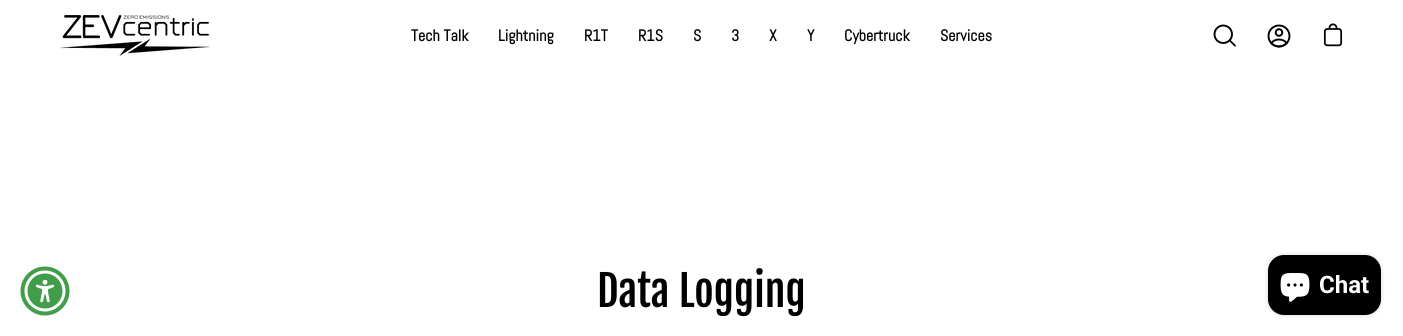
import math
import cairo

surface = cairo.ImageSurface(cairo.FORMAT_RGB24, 1403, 336)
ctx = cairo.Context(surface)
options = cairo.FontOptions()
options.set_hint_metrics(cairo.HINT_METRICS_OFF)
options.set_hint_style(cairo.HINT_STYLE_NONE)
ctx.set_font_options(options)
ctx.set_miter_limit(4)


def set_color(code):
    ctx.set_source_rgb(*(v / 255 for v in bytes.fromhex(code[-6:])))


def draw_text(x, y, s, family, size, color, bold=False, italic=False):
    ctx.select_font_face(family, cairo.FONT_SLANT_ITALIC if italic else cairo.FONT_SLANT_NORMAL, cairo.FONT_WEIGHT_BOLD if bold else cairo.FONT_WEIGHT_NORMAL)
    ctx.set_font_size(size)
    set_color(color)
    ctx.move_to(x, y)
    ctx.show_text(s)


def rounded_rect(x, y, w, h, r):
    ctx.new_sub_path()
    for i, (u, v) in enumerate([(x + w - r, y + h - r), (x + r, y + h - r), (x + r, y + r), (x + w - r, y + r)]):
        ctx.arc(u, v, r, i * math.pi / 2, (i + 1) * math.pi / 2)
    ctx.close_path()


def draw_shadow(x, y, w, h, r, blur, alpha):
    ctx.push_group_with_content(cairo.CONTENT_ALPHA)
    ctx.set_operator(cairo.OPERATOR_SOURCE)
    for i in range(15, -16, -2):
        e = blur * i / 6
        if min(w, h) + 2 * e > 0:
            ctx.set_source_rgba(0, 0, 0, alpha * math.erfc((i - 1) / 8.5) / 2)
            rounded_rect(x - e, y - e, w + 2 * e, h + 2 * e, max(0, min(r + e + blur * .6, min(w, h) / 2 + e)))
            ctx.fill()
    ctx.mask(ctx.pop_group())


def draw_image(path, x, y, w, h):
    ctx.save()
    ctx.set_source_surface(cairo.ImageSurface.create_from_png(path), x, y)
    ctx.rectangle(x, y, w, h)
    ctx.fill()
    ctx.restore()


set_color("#ffffff")
ctx.paint()
draw_image("assets/img1.png", 60, 15, 150, 41)
draw_text(411, 41, "Tech Talk", "Abel", 16, "#000000", bold=True)
draw_text(498, 41, "Lightning", "Abel", 16, "#000000", bold=True)
draw_text(584, 41, "R1T", "Abel", 16, "#000000", bold=True)
draw_text(638, 41, "R1S", "Abel", 16, "#000000", bold=True)
draw_text(693, 41, "S", "Abel", 16, "#000000", bold=True)
draw_text(731, 41, "3", "Abel", 16, "#000000", bold=True)
draw_text(769, 41, "X", "Abel", 16, "#000000", bold=True)
draw_text(807, 41, "Y", "Abel", 16, "#000000", bold=True)
draw_text(844, 41, "Cybertruck", "Abel", 16, "#000000", bold=True)
draw_text(940, 41, "Services", "Abel", 16, "#000000", bold=True)
draw_image("assets/img2.png", 1213, 24, 23, 23)
draw_image("assets/img3.png", 1267, 24, 24, 24)
draw_image("assets/img4.png", 1323, 23, 20, 24)
set_color("#419d4a")
ctx.arc(45, 291, 24.5, 0, 2 * math.pi)
ctx.fill()
set_color("#ffffff")
ctx.arc(45, 291, 20.5, 0, 2 * math.pi)
ctx.fill()
set_color("#419d4a")
ctx.arc(45, 291, 17.5, 0, 2 * math.pi)
ctx.fill()
draw_image("assets/img5.png", 35, 280, 20, 23)
draw_text(597, 307, "Data Logging", "Fjalla One", 42, "#000000")
set_color("#000000")
draw_shadow(1268, 255, 113, 60, 16, 2.5, 0.15)
set_color("#000000")
rounded_rect(1268, 255, 113, 60, 16)
ctx.fill()
draw_image("assets/img6.png", 1280, 273, 30, 29)
draw_text(1319, 293, "Chat", "Roboto", 24, "#ffffff", bold=True)
surface.write_to_png("output.png")
